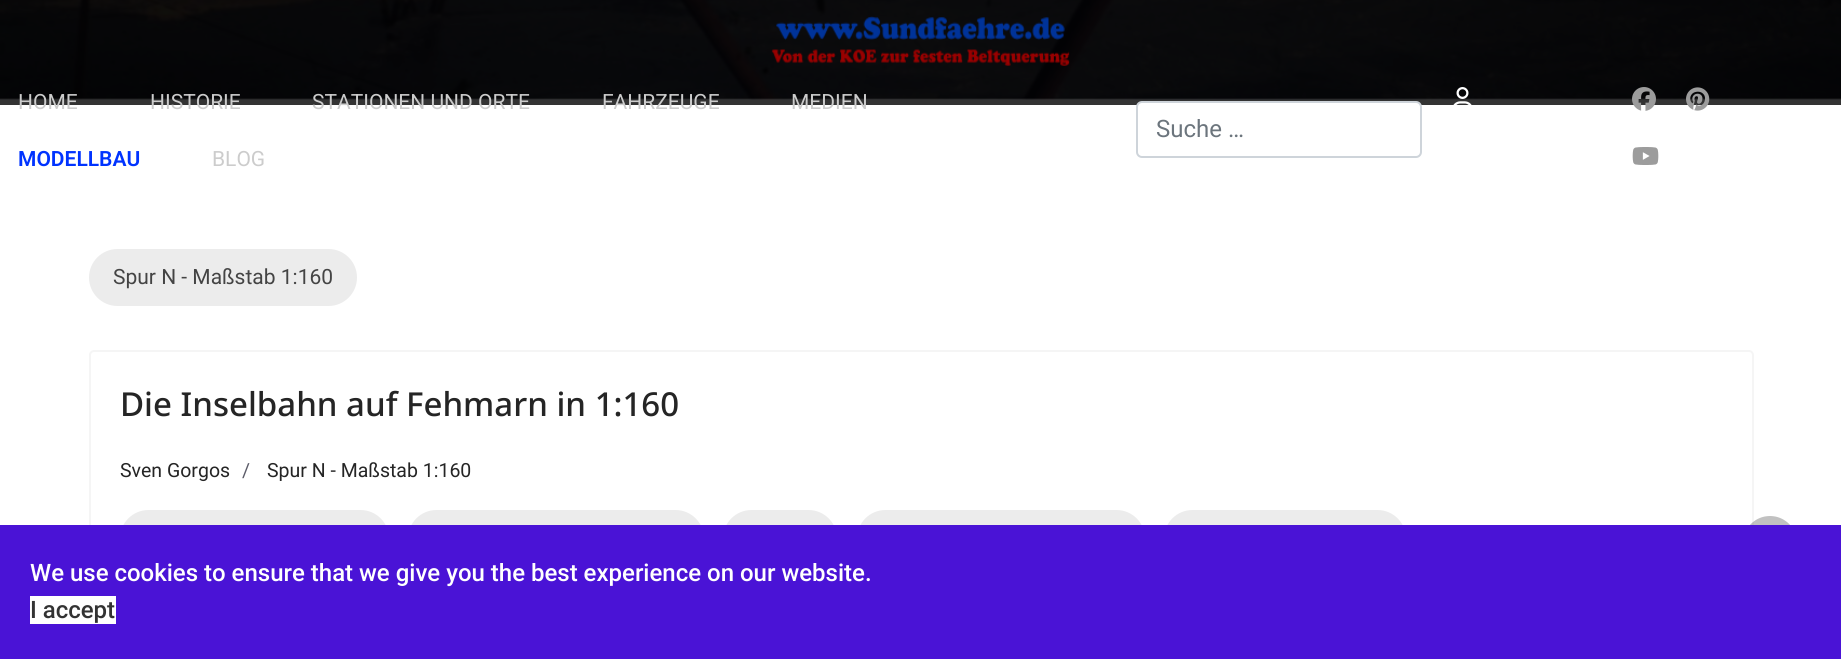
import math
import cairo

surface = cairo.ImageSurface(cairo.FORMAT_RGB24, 1841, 659)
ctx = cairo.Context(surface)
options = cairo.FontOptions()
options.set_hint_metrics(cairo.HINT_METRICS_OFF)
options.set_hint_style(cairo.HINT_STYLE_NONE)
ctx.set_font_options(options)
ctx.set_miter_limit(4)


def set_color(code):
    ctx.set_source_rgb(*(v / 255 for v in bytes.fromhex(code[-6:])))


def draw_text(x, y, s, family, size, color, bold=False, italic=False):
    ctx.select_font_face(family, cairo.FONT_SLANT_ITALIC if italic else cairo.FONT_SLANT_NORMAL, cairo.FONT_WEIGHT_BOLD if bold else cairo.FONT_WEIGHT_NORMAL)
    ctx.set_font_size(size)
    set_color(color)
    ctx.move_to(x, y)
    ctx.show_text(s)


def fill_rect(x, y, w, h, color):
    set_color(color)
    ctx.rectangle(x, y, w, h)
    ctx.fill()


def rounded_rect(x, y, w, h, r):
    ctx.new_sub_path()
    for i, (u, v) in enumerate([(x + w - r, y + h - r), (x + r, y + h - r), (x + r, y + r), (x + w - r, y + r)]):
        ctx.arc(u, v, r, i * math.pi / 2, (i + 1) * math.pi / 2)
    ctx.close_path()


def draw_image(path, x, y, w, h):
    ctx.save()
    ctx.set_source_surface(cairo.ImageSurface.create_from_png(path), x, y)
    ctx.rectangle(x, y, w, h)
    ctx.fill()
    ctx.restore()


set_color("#ffffff")
ctx.paint()
fill_rect(0, 98, 1841, 7, "#333333")
draw_image("assets/img1.png", 0, 0, 1841, 100)
draw_image("assets/img2.png", 771, 16, 299, 50)
draw_text(18, 109, "HOME", "Roboto", 21, "#cccccc")
draw_text(150, 109, "HISTORIE", "Roboto", 21, "#cccccc")
draw_text(312, 109, "STATIONEN UND ORTE", "Roboto", 21, "#cccccc")
draw_text(602, 109, "FAHRZEUGE", "Roboto", 21, "#cccccc")
draw_text(791, 109, "MEDIEN", "Roboto", 21, "#cccccc")
draw_text(18, 166, "MODELLBAU", "Roboto SemiBold", 21, "#0033ff")
draw_text(212, 166, "BLOG", "Roboto", 21, "#cccccc")
draw_image("assets/img3.png", 1453, 87, 19, 18)
set_color("#ffffff")
rounded_rect(1137, 102, 284, 55, 5)
ctx.fill_preserve()
set_color("#ced4da")
ctx.stroke()
draw_text(1156, 137, "Suche …", "Roboto", 24, "#6c757d")
draw_image("assets/img4.png", 1632, 87, 24, 24)
draw_image("assets/img5.png", 1686, 87, 24, 24)
draw_image("assets/img6.png", 1632, 147, 27, 18)
set_color("#ececec")
rounded_rect(89, 249, 268, 57, 28.5)
ctx.fill()
draw_text(113, 284, "Spur N - Maßstab 1:160", "Roboto", 21, "#444444")
rounded_rect(90, 351, 1663, 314, 4)
set_color("#f5f5f5")
ctx.stroke()
draw_text(120, 416, "Die Inselbahn auf Fehmarn in 1:160", "Noto Sans Medium", 33, "#252525")
draw_text(120, 477, "Sven Gorgos", "Roboto", 19.5, "#252525")
draw_text(242, 477, "/", "Roboto", 19.5, "#5c5c69")
draw_text(267, 477, "Spur N - Maßstab 1:160", "Roboto", 19.5, "#252525")
set_color("#ececec")
rounded_rect(120, 510, 269, 57, 28.5)
ctx.fill()
rounded_rect(408, 510, 296, 57, 28.5)
ctx.fill()
rounded_rect(723, 510, 114, 57, 28.5)
ctx.fill()
rounded_rect(857, 510, 288, 57, 28.5)
ctx.fill()
rounded_rect(1164, 510, 242, 57, 28.5)
ctx.fill()
ctx.set_source_rgba(0.392, 0.392, 0.392, 0.4)
ctx.arc(1770, 543, 27, 0, 2 * math.pi)
ctx.fill()
fill_rect(0, 525, 1841, 134, "#4a13d6")
draw_text(30, 581, "We use cookies to ensure that we give you the best experience on our website.", "Roboto Medium", 24, "#ffffff")
fill_rect(30, 596, 86, 28, "#ffffff")
draw_text(30, 618, "I accept", "Roboto Medium", 24, "#333333")
surface.write_to_png("output.png")
